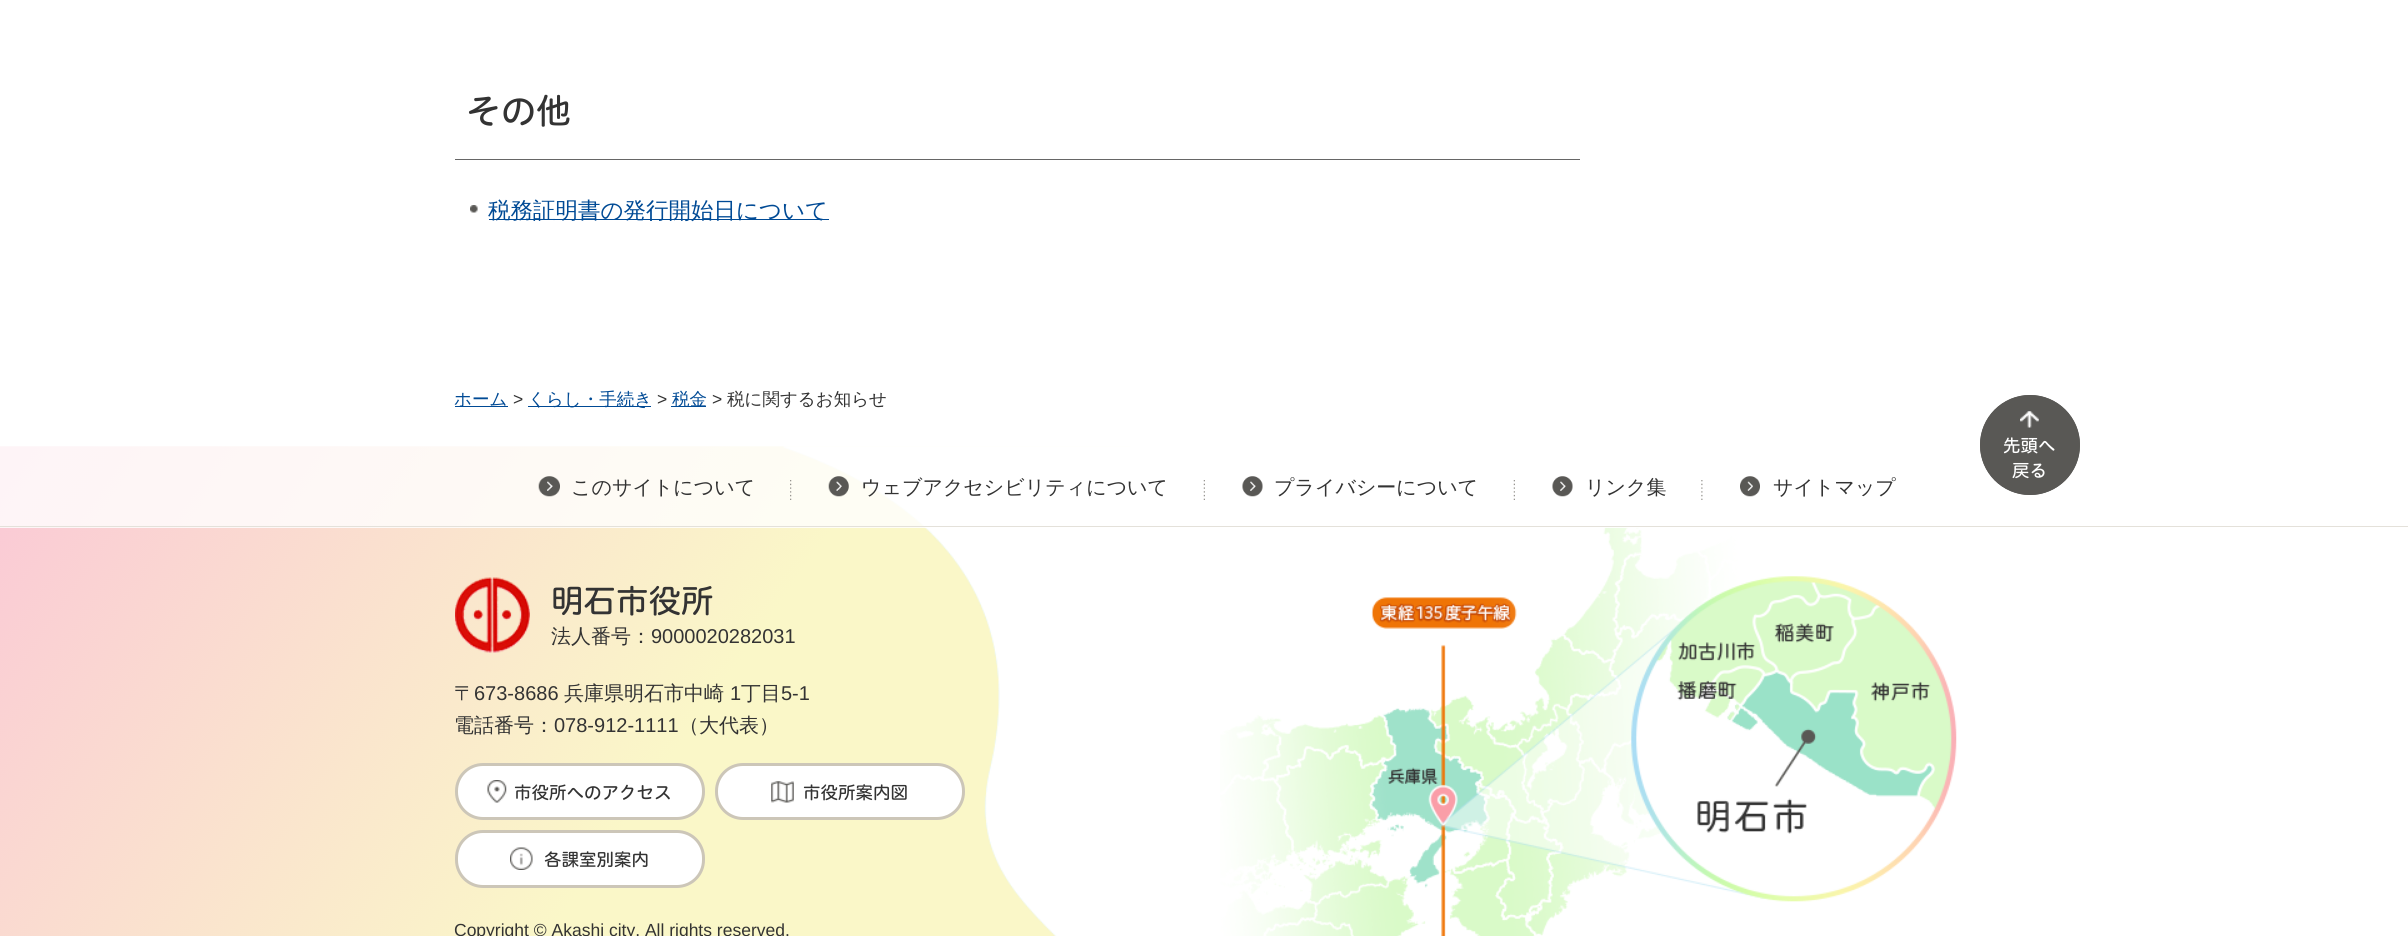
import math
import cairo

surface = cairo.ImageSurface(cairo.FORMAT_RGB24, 2408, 936)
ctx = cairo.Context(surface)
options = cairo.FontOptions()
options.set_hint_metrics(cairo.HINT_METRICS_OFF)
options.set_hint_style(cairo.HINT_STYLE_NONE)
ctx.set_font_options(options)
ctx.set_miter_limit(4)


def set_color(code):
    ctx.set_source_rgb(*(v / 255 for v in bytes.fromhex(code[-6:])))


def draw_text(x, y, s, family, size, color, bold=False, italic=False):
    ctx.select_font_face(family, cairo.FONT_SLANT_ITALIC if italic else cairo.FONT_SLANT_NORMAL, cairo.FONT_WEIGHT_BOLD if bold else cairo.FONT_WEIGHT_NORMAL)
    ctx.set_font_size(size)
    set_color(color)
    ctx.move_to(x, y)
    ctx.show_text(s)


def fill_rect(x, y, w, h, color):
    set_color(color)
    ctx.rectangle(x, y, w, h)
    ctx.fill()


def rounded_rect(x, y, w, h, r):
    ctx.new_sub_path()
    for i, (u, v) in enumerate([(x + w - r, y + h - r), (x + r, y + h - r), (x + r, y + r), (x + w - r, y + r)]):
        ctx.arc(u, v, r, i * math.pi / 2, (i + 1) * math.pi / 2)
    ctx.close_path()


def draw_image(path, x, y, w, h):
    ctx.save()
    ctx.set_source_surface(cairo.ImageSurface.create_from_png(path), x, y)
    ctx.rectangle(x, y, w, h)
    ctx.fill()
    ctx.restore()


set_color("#ffffff")
ctx.paint()
fill_rect(455, 159, 1125, 1, "#666666")
draw_text(466, 124, "その他", "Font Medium", 35, "#333333")
draw_image("assets/img1.png", 470, 205, 8, 8)
fill_rect(489, 219, 340, 1, "#004a95")
draw_text(488, 218, "税務証明書の発行開始日について", "WenQuanYi Zen Hei Medium", 22.5, "#004a95")
fill_rect(455, 406, 53, 1, "#004a95")
draw_text(454, 405, "ホーム", "WenQuanYi Zen Hei Medium", 17.5, "#004a95")
draw_text(513, 405, ">", "Liberation Sans", 17.5, "#333333")
fill_rect(528, 406, 123, 1, "#004a95")
draw_text(528, 405, "くらし・手続き", "WenQuanYi Zen Hei Medium", 17.5, "#004a95")
draw_text(657, 405, ">", "Liberation Sans", 17.5, "#333333")
fill_rect(671, 406, 35, 1, "#004a95")
draw_text(672, 405, "税金", "WenQuanYi Zen Hei Medium", 17.5, "#004a95")
draw_text(712, 405, ">", "Liberation Sans", 17.5, "#333333")
draw_text(727, 405, "税に関するお知らせ", "WenQuanYi Zen Hei Medium", 17.5, "#333333")
draw_image("assets/img2.png", 0, 446, 1131, 490)
draw_image("assets/img16.png", 1220, 527, 737, 409)
ctx.set_source_rgba(1, 1, 1, 0.8)
ctx.rectangle(0, 446, 1638, 82)
ctx.fill()
fill_rect(0, 526, 2408, 1, "#e4e1da")
draw_image("assets/img3.png", 538, 476, 22, 21)
draw_text(571, 494, "このサイトについて", "WenQuanYi Zen Hei Medium", 20, "#333333")
draw_image("assets/img4.png", 790, 480, 2, 20)
draw_image("assets/img5.png", 828, 476, 21, 21)
draw_text(861, 494, "ウェブアクセシビリティについて", "WenQuanYi Zen Hei Medium", 20, "#333333")
draw_image("assets/img6.png", 1203, 480, 2, 20)
draw_image("assets/img7.png", 1242, 476, 21, 21)
draw_text(1274, 494, "プライバシーについて", "WenQuanYi Zen Hei Medium", 20, "#333333")
draw_image("assets/img6.png", 1513, 480, 2, 20)
draw_image("assets/img8.png", 1552, 476, 21, 21)
draw_text(1585, 494, "リンク集", "WenQuanYi Zen Hei Medium", 20, "#333333")
draw_image("assets/img9.png", 1701, 480, 2, 20)
draw_image("assets/img10.png", 1740, 476, 20, 21)
draw_text(1773, 494, "サイトマップ", "WenQuanYi Zen Hei Medium", 20, "#333333")
set_color("#595855")
ctx.new_path()
ctx.arc(2030, 445, 50, 0, 2 * math.pi)
ctx.fill()
draw_image("assets/img11.png", 2020, 411, 19, 17)
ctx.arc(2030, 445, 49.5, 0, 2 * math.pi)
ctx.set_line_width(1)
ctx.stroke()
draw_text(2003, 452, "先頭へ", "Font Medium", 17.5, "#ffffff")
draw_text(2012, 477, "戻る", "Font Medium", 17.5, "#ffffff")
draw_image("assets/img12.png", 455, 577, 75, 76)
draw_text(551, 613, "明石市役所", "Font Medium", 32.5, "#333333")
draw_text(551, 643, "法人番号：", "WenQuanYi Zen Hei Medium", 20, "#333333")
draw_text(651, 643, "9000020282031", "Liberation Sans", 20, "#333333")
draw_text(454, 700, "〒", "WenQuanYi Zen Hei Medium", 20, "#333333")
draw_text(474, 700, "673-8686", "Liberation Sans", 20, "#333333")
draw_text(564, 700, "兵庫県明石市中崎", "WenQuanYi Zen Hei Medium", 20, "#333333")
draw_text(730, 700, "1", "Liberation Sans", 20, "#333333")
draw_text(741, 700, "丁目", "WenQuanYi Zen Hei Medium", 20, "#333333")
draw_text(781, 700, "5-1", "Liberation Sans", 20, "#333333")
draw_text(454, 732, "電話番号：", "WenQuanYi Zen Hei Medium", 20, "#333333")
draw_text(554, 732, "078-912-1111", "Liberation Sans", 20, "#333333")
draw_text(679, 732, "（大代表）", "WenQuanYi Zen Hei Medium", 20, "#333333")
set_color("#ffffff")
rounded_rect(456.5, 764.5, 247, 54, 26.5)
ctx.fill_preserve()
set_color("#ccc6b8")
ctx.set_line_width(3)
ctx.stroke()
draw_image("assets/img13.png", 487, 780, 20, 23)
draw_text(514, 799, "市役所へのアクセス", "Font Medium", 17.5, "#333333")
set_color("#ffffff")
rounded_rect(716.5, 764.5, 247, 54, 26.5)
ctx.fill_preserve()
set_color("#ccc6b8")
ctx.stroke()
draw_image("assets/img14.png", 771, 781, 23, 22)
draw_text(803, 799, "市役所案内図", "Font Medium", 17.5, "#333333")
set_color("#ffffff")
rounded_rect(456.5, 831.5, 247, 55, 26.5)
ctx.fill_preserve()
set_color("#ccc6b8")
ctx.stroke()
draw_image("assets/img15.png", 510, 847, 23, 23)
draw_text(544, 866, "各課室別案内", "Font Medium", 17.5, "#333333")
draw_text(454, 936, "Copyright © Akashi city. All rights reserved.", "Liberation Sans", 17.5, "#333333")
surface.write_to_png("output.png")
